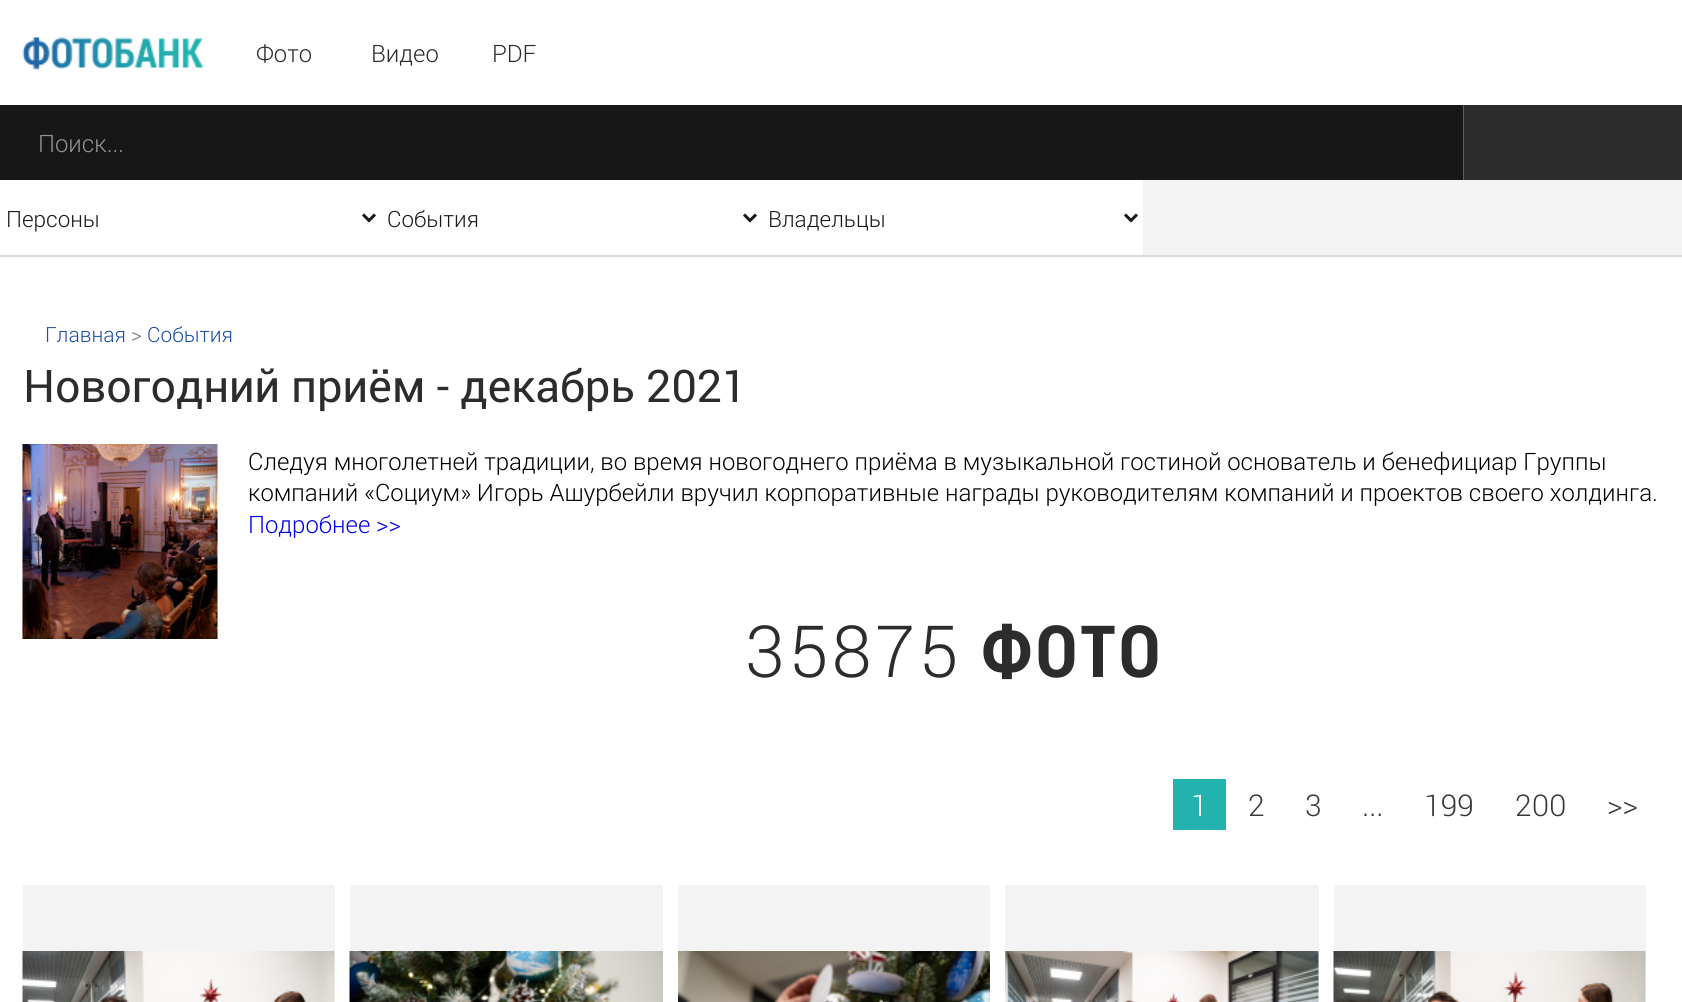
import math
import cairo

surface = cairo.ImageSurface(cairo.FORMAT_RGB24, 1682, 1002)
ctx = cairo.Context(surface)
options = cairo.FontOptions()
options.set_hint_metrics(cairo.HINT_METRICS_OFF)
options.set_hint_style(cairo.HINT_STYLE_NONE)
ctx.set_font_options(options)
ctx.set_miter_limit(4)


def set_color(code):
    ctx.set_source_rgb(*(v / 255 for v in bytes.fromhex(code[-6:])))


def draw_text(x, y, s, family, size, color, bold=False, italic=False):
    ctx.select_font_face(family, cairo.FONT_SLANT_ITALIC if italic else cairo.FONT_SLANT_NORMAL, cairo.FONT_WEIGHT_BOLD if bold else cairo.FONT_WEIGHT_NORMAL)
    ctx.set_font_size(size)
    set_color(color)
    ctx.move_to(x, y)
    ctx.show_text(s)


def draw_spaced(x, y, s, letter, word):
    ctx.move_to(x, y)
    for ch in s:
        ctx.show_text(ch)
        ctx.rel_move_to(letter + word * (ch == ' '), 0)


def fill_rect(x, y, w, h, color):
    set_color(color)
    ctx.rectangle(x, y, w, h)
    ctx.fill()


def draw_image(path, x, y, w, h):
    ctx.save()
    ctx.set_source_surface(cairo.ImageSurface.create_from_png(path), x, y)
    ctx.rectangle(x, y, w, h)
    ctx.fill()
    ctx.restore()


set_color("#ffffff")
ctx.paint()
draw_image("assets/img1.png", 22, 37, 182, 33)
draw_text(256, 62, "Фото", "Roboto Light", 24, "#2c2c2c")
draw_text(371, 62, "Видео", "Roboto Light", 24, "#2c2c2c")
draw_text(492, 62, "PDF", "Roboto Light", 24, "#2c2c2c")
fill_rect(1464, 105, 218, 75, "#2c2c2c")
fill_rect(0, 105, 1463, 75, "#171717")
fill_rect(1463, 105, 1, 75, "#5e5e5e")
draw_text(38, 152, "Поиск...", "Roboto Light", 24, "#939393")
fill_rect(1143, 180, 539, 75, "#f3f3f3")
fill_rect(0, 255, 1682, 2, "#dbdbdb")
ctx.new_path()
ctx.move_to(363, 214.5)
ctx.line_to(369, 220.5)
ctx.line_to(375, 214.5)
set_color("#1c1919")
ctx.set_line_width(3)
ctx.stroke()
draw_text(6, 227, "Персоны", "Roboto Light", 22.5, "#1c1919")
ctx.new_path()
ctx.move_to(744, 214.5)
ctx.line_to(750, 220.5)
ctx.line_to(756, 214.5)
ctx.stroke()
draw_text(387, 227, "События", "Roboto Light", 22.5, "#1c1919")
ctx.new_path()
ctx.move_to(1125, 214.5)
ctx.line_to(1131, 220.5)
ctx.line_to(1137, 214.5)
ctx.stroke()
draw_text(768, 227, "Владельцы", "Roboto Light", 22.5, "#1c1919")
draw_text(45, 342, "Главная", "Roboto Light", 21, "#1b50a9")
draw_text(131, 342, ">", "Roboto Light", 21, "#767676")
draw_text(147, 342, "События", "Roboto Light", 21, "#1b50a9")
draw_text(23, 402, "Новогодний приём - декабрь 2021", "Roboto", 45, "#2c2c2c")
draw_image("assets/img2.png", 22, 444, 196, 195)
draw_text(248, 470, "Следуя многолетней традиции, во время новогоднего приёма в музыкальной гостиной основатель и бенефициар Группы", "Roboto Light", 24, "#000000")
draw_text(248, 501, "компаний «Социум» Игорь Ашурбейли вручил корпоративные награды руководителям компаний и проектов своего холдинга.", "Roboto Light", 24, "#000000")
draw_text(248, 533, "Подробнее >>", "Roboto Light", 24, "#0000ee")
ctx.set_font_size(72)
set_color("#2c2c2c")
draw_spaced(745, 677, "35875", 3.5, 0)
ctx.select_font_face("Roboto Condensed", cairo.FONT_SLANT_NORMAL, cairo.FONT_WEIGHT_BOLD)
draw_spaced(981, 677, "ФОТО", 3.5, 0)
fill_rect(1173, 779, 53, 51, "#23b2ae")
draw_text(1191, 816, "1", "Roboto Light", 30, "#ffffff")
draw_text(1248, 816, "2", "Roboto Light", 30, "#383838")
draw_text(1305, 816, "3", "Roboto Light", 30, "#383838")
draw_text(1362, 816, "...", "Roboto Light", 30, "#383838")
draw_text(1424, 816, "199", "Roboto Light", 30, "#383838")
draw_text(1515, 816, "200", "Roboto Light", 30, "#383838")
draw_text(1607, 816, ">>", "Roboto Light", 30, "#383838")
fill_rect(23, 885, 312, 117, "#f3f3f3")
draw_image("assets/img3.png", 22, 951, 313, 51)
fill_rect(350, 885, 313, 66, "#f3f3f3")
draw_image("assets/img4.png", 349, 951, 314, 51)
fill_rect(678, 885, 312, 66, "#f3f3f3")
draw_image("assets/img5.png", 678, 951, 312, 51)
fill_rect(1005, 885, 314, 117, "#f3f3f3")
draw_image("assets/img6.png", 1005, 951, 314, 51)
fill_rect(1334, 885, 312, 117, "#f3f3f3")
draw_image("assets/img7.png", 1333, 951, 313, 51)
surface.write_to_png("output.png")
